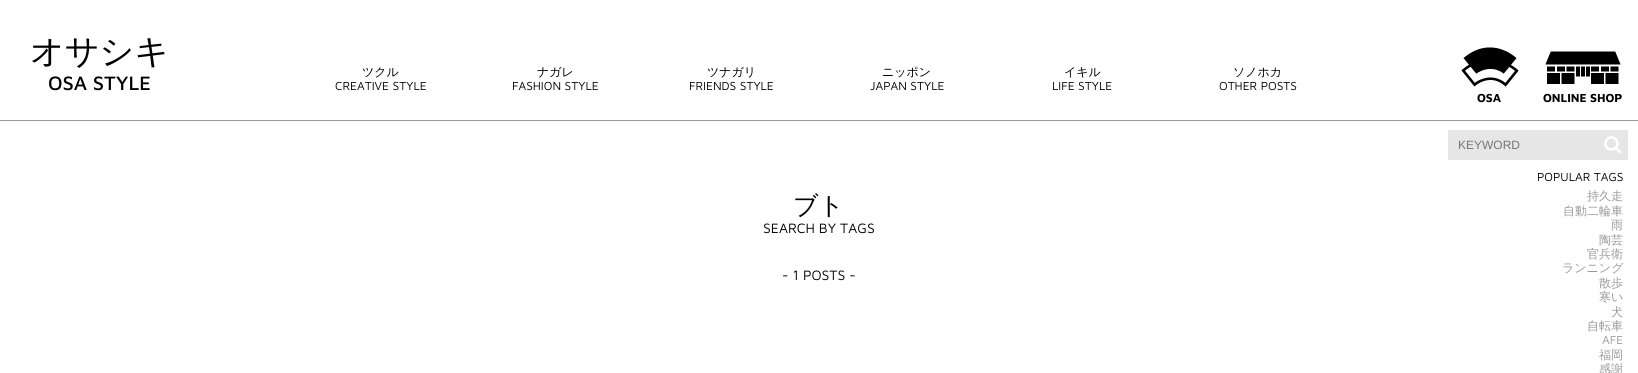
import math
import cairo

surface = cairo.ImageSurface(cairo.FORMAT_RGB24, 1638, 373)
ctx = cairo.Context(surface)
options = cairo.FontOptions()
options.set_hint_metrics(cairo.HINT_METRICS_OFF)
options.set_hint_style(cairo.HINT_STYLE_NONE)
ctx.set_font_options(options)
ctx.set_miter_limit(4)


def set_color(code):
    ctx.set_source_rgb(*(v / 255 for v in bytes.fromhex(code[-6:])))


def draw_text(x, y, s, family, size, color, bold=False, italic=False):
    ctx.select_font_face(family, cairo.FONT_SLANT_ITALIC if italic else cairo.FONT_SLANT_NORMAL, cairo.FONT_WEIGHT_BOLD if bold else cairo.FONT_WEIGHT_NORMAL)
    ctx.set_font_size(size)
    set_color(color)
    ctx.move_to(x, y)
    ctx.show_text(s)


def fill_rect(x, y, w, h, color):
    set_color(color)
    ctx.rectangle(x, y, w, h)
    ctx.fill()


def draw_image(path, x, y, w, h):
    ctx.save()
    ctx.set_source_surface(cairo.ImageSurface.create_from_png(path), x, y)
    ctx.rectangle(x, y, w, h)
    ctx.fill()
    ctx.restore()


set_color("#ffffff")
ctx.paint()
fill_rect(0, 120, 1638, 1, "#999999")
draw_text(30, 63, "オサシキ", "WenQuanYi Zen Hei Medium", 34, "#000000")
draw_text(48, 90, "OSA STYLE", "Maven Pro Medium", 20, "#000000")
draw_text(362, 76, "ツクル", "WenQuanYi Zen Hei Medium", 12, "#000000")
draw_text(335, 90, "CREATIVE STYLE", "Maven Pro", 12, "#000000")
draw_text(537, 76, "ナガレ", "WenQuanYi Zen Hei Medium", 12, "#000000")
draw_text(512, 90, "FASHION STYLE", "Maven Pro", 12, "#000000")
draw_text(707, 76, "ツナガリ", "WenQuanYi Zen Hei Medium", 12, "#000000")
draw_text(689, 90, "FRIENDS STYLE", "Maven Pro", 12, "#000000")
draw_text(882, 76, "ニッポン", "WenQuanYi Zen Hei Medium", 12, "#000000")
draw_text(870, 90, "JAPAN STYLE", "Maven Pro", 12, "#000000")
draw_text(1064, 76, "イキル", "WenQuanYi Zen Hei Medium", 12, "#000000")
draw_text(1052, 90, "LIFE STYLE", "Maven Pro", 12, "#000000")
draw_text(1233, 76, "ソノホカ", "WenQuanYi Zen Hei Medium", 12, "#000000")
draw_text(1219, 90, "OTHER POSTS", "Maven Pro", 12, "#000000")
fill_rect(1448, 130, 180, 30, "#e6e6e6")
draw_text(1458, 149, "KEYWORD", "Liberation Sans", 12, "#757575")
draw_image("assets/img1.png", 1604, 136, 18, 18)
draw_text(1537, 181, "POPULAR TAGS", "Maven Pro", 12, "#000000")
draw_text(1587, 200, "持久走", "WenQuanYi Zen Hei Medium", 12, "#999999")
draw_text(1563, 215, "自動二輪車", "WenQuanYi Zen Hei Medium", 12, "#999999")
draw_text(1611, 229, "雨", "WenQuanYi Zen Hei Medium", 12, "#999999")
draw_text(1599, 244, "陶芸", "WenQuanYi Zen Hei Medium", 12, "#999999")
draw_text(1587, 258, "官兵衛", "WenQuanYi Zen Hei Medium", 12, "#999999")
draw_text(1562, 272, "ランニング", "WenQuanYi Zen Hei Medium", 12, "#999999")
draw_text(1599, 287, "散歩", "WenQuanYi Zen Hei Medium", 12, "#999999")
draw_text(1599, 301, "寒い", "WenQuanYi Zen Hei Medium", 12, "#999999")
draw_text(1611, 316, "犬", "WenQuanYi Zen Hei Medium", 12, "#999999")
draw_text(1587, 330, "自転車", "WenQuanYi Zen Hei Medium", 12, "#999999")
draw_text(1602, 344, "AFE", "Maven Pro", 12, "#999999")
draw_text(1599, 359, "福岡", "WenQuanYi Zen Hei Medium", 12, "#999999")
draw_text(1599, 373, "感謝", "WenQuanYi Zen Hei Medium", 12, "#999999")
draw_image("assets/img2.png", 1461, 47, 58, 40)
draw_text(1477, 102, "OSA", "Maven Pro", 12, "#000000", bold=True)
draw_image("assets/img3.png", 1545, 51, 76, 33)
draw_text(1543, 102, "ONLINE SHOP", "Maven Pro", 12, "#000000", bold=True)
draw_text(793, 214, "ブト", "WenQuanYi Zen Hei Medium", 25, "#000000")
draw_text(763, 233, "SEARCH BY TAGS", "Maven Pro", 14, "#000000")
draw_text(782, 280, "- 1 POSTS -", "Maven Pro", 14, "#000000")
surface.write_to_png("output.png")
